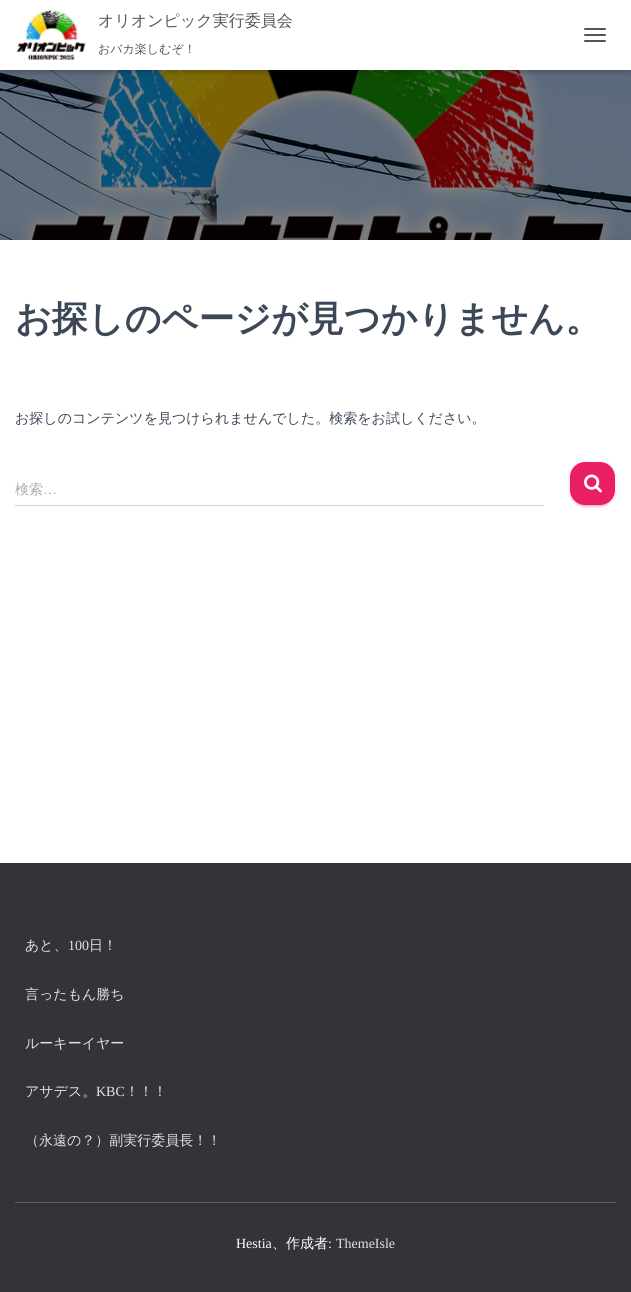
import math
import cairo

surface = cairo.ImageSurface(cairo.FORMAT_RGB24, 631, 1292)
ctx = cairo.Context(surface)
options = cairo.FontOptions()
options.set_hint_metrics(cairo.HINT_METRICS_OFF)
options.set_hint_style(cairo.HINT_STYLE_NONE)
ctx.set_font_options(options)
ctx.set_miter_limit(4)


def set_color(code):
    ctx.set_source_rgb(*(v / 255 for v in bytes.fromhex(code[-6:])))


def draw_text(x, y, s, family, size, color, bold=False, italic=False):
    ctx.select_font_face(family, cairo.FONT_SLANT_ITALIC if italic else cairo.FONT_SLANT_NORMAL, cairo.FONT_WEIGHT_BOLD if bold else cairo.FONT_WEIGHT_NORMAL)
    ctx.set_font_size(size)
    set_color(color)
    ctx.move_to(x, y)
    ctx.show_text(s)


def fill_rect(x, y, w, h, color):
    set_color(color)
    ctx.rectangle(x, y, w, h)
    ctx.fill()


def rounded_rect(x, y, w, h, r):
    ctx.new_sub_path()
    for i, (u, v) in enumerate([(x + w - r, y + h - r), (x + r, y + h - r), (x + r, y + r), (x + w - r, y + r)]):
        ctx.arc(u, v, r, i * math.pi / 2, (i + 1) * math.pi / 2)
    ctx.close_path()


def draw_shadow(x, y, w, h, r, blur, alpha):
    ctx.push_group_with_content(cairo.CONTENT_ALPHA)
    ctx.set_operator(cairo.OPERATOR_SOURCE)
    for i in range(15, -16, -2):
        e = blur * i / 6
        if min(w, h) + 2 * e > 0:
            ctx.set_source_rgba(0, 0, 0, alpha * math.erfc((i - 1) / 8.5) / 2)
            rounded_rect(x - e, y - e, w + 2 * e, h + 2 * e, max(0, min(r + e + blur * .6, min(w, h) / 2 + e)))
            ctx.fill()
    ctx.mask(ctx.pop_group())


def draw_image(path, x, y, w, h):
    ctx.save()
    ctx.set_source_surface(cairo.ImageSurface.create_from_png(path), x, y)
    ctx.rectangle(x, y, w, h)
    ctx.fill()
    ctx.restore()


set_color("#ffffff")
ctx.paint()
draw_image("assets/img1.png", 0, 70, 631, 170)
draw_image("assets/img3.png", 13, 70, 603, 170)
ctx.set_source_rgba(0, 0, 0, 0.5)
ctx.rectangle(0, 70, 631, 170)
ctx.fill()
set_color("#000000")
draw_shadow(2, 6, 627, 66, 0, 2.5, 0.1)
draw_shadow(0, 1, 631, 70, 0, 5, 0.12)
draw_shadow(6, 7, 619, 58, 0, 5, 0.42)
fill_rect(0, 0, 631, 70, "#ffffff")
draw_image("assets/img2.png", 16, 10, 70, 50)
draw_text(98, 26, "オリオンピック実行委員会", "WenQuanYi Zen Hei Medium", 16, "#555555")
draw_text(98, 53, "おバカ楽しむぞ！", "WenQuanYi Zen Hei Medium", 12, "#555555")
rounded_rect(584, 28, 22, 2, 1)
ctx.fill()
rounded_rect(584, 34, 22, 2, 1)
ctx.fill()
rounded_rect(584, 40, 22, 2, 1)
ctx.fill()
set_color("#000000")
draw_shadow(-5, 241, 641, 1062, 0, 15, 0.12)
fill_rect(0, 240, 631, 623, "#ffffff")
draw_text(15, 331, "お探しのページが見つかりません。", "WenQuanYi Zen Hei", 36, "#3c4858", bold=True)
draw_text(15, 423, "お探しのコンテンツを見つけられませんでした。検索をお試しください。", "WenQuanYi Zen Hei Medium", 14, "#3c4858")
draw_text(15, 494, "検索", "WenQuanYi Zen Hei Medium", 14, "#aaaaaa")
draw_text(43, 494, "…", "Liberation Serif", 14, "#aaaaaa")
fill_rect(15, 505, 529, 1, "#d2d2d2")
set_color("#e91e63")
draw_shadow(570, 463, 45, 43, 15, 2.5, 0.12)
draw_shadow(572, 467, 41, 39, 13, 0.5, 0.2)
draw_shadow(570, 464, 45, 43, 15, 1, 0.14)
set_color("#e91e63")
rounded_rect(570, 462, 45, 43, 15)
ctx.fill()
draw_image("assets/img4.png", 584, 474, 18, 19)
fill_rect(0, 863, 631, 429, "#323437")
draw_text(25, 950, "あと、", "WenQuanYi Zen Hei Medium", 14, "#e2e3e3")
draw_text(68, 950, "100", "Liberation Serif", 14, "#e2e3e3")
draw_text(89, 950, "日！", "WenQuanYi Zen Hei Medium", 14, "#e2e3e3")
draw_text(25, 999, "言ったもん勝ち", "WenQuanYi Zen Hei Medium", 14, "#e2e3e3")
draw_text(25, 1048, "ルーキーイヤー", "WenQuanYi Zen Hei Medium", 14, "#e2e3e3")
draw_text(25, 1096, "アサデス。", "WenQuanYi Zen Hei Medium", 14, "#e2e3e3")
draw_text(96, 1096, "KBC", "Liberation Serif", 14, "#e2e3e3")
draw_text(125, 1096, "！！！", "WenQuanYi Zen Hei Medium", 14, "#e2e3e3")
draw_text(25, 1145, "（永遠の？）副実行委員長！！", "WenQuanYi Zen Hei Medium", 14, "#e2e3e3")
fill_rect(15, 1202, 601, 1, "#5e5e5e")
draw_text(236, 1248, "Hestia", "Liberation Serif", 14, "#ffffff")
draw_text(272, 1248, "、作成者", "WenQuanYi Zen Hei Medium", 14, "#ffffff")
draw_text(328, 1248, ":", "Liberation Serif", 14, "#ffffff")
draw_text(336, 1248, "ThemeIsle", "Liberation Serif", 14, "#e2e3e3")
surface.write_to_png("output.png")
